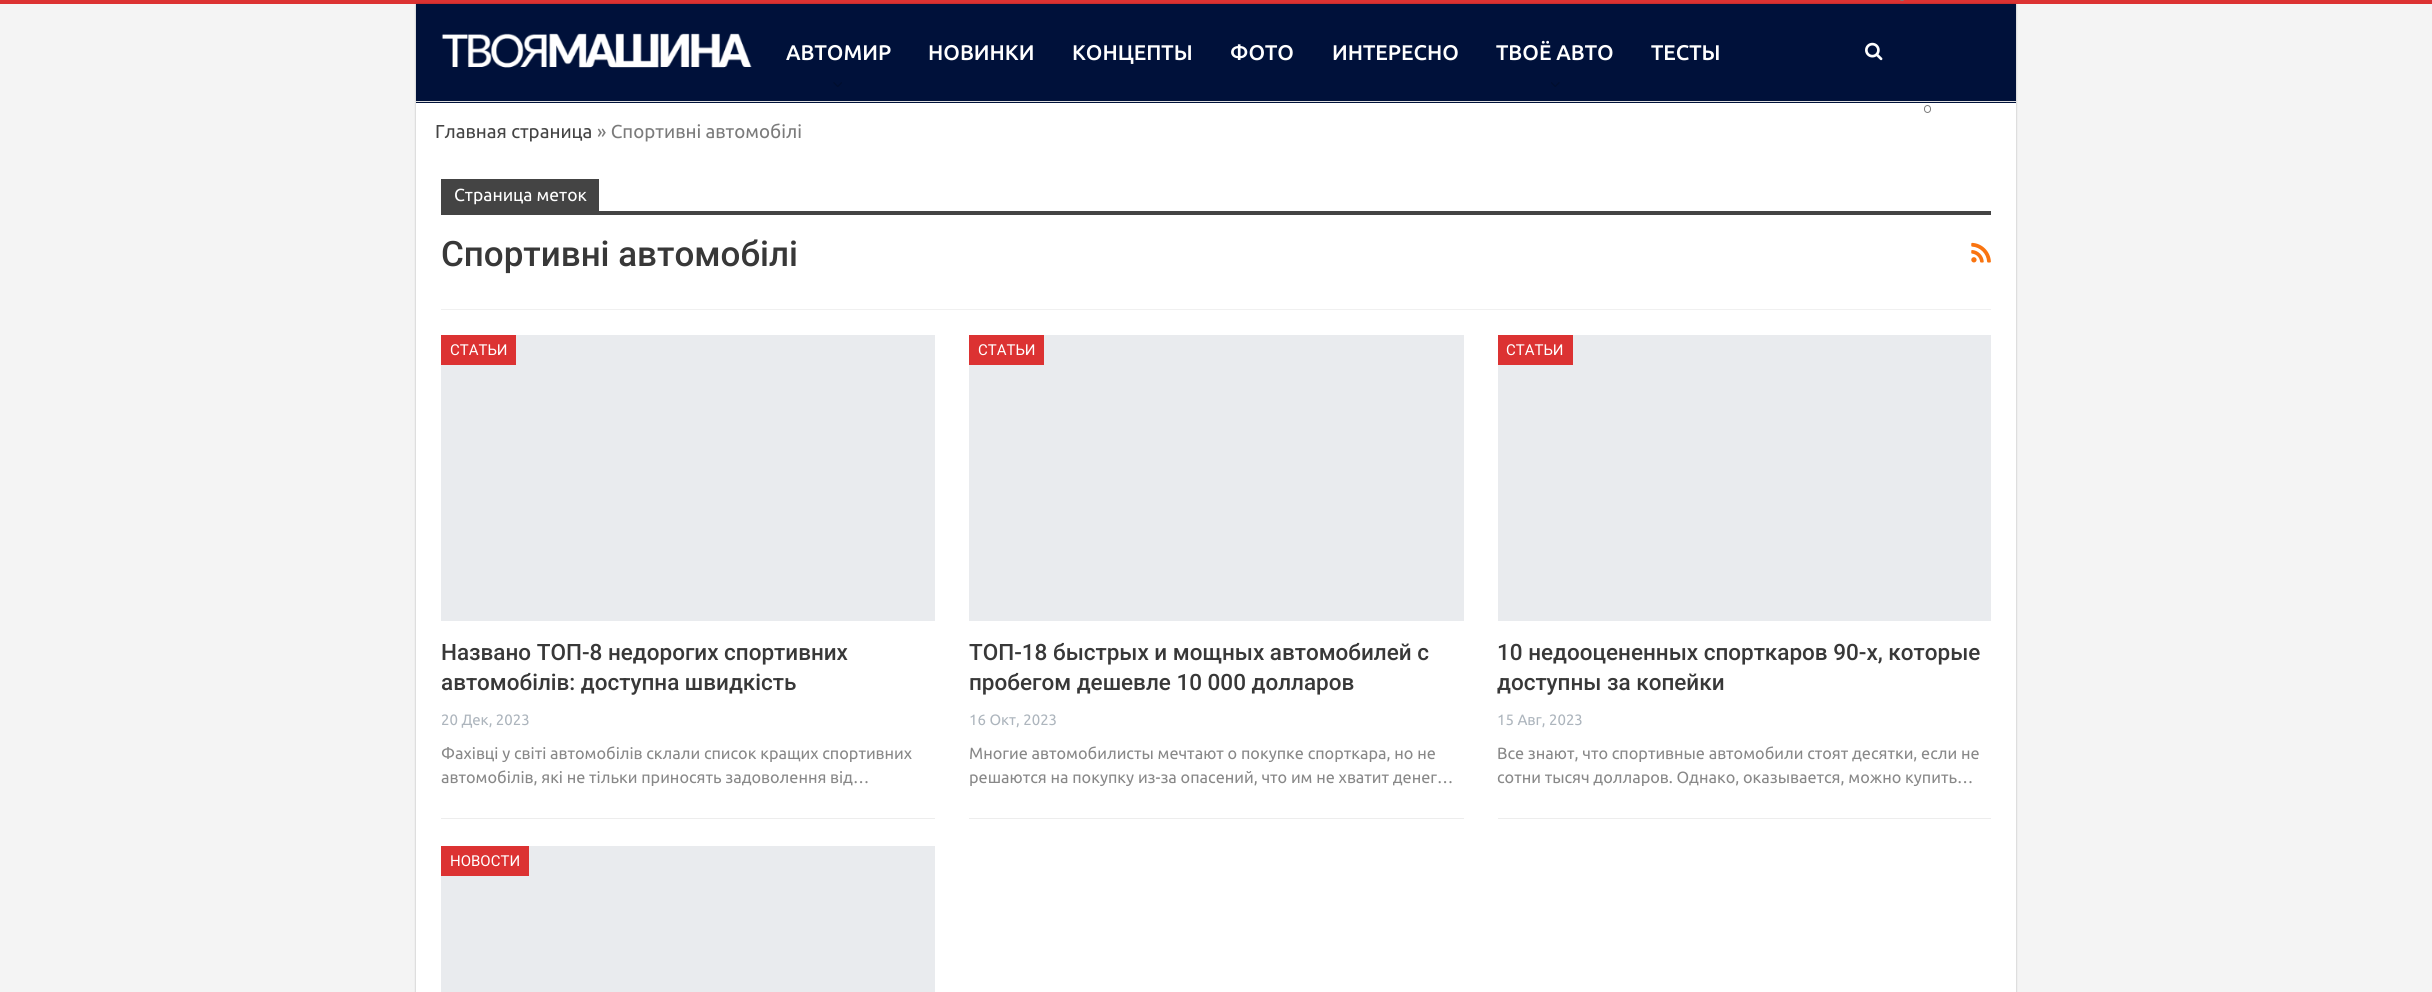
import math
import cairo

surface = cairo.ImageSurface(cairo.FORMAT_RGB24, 2432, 992)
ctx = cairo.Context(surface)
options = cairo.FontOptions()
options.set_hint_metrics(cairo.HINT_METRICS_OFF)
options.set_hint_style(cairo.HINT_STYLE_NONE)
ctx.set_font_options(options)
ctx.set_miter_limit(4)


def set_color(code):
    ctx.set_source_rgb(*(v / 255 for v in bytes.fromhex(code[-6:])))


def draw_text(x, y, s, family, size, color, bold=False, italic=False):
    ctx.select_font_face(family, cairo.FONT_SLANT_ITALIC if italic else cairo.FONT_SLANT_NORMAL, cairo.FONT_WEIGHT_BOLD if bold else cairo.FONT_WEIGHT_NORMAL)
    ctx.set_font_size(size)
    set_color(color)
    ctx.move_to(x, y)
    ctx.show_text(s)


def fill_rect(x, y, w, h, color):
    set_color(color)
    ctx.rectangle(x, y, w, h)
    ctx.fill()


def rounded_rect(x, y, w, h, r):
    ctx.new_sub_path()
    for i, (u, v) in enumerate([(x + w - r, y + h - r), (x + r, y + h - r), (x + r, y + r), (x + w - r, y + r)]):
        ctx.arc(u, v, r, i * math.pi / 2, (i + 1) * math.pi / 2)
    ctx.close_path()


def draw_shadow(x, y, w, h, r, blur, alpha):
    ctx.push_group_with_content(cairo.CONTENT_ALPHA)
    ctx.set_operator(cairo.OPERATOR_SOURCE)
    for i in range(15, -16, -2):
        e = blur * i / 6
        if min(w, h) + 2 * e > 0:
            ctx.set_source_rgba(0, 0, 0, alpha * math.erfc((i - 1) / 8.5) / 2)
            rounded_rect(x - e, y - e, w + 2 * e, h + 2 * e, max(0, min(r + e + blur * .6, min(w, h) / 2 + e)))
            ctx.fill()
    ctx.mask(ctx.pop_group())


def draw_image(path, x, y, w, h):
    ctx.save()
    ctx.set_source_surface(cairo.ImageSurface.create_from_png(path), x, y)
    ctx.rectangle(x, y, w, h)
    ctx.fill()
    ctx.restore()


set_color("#f4f4f4")
ctx.paint()
fill_rect(0, 0, 2432, 4, "#dc3232")
set_color("#000000")
draw_shadow(416, 4, 1600, 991, 0, 1, 0.27)
fill_rect(416, 103, 1600, 889, "#ffffff")
fill_rect(416, 4, 1600, 99, "#00113a")
fill_rect(416, 101, 1600, 1, "#dedede")
draw_image("assets/img1.png", 441, 33, 311, 35)
draw_text(786, 60, "АВТОМИР", "Ubuntu Medium", 21.25, "#ffffff")
draw_image("assets/img2.png", 833, 82, 9, 5)
draw_text(928, 60, "НОВИНКИ", "Ubuntu Medium", 21.25, "#ffffff")
draw_text(1072, 60, "КОНЦЕПТЫ", "Ubuntu Medium", 21.25, "#ffffff")
draw_text(1230, 60, "ФОТО", "Ubuntu Medium", 21.25, "#ffffff")
draw_text(1332, 60, "ИНТЕРЕСНО", "Ubuntu Medium", 21.25, "#ffffff")
draw_text(1496, 60, "ТВОЁ АВТО", "Ubuntu Medium", 21.25, "#ffffff")
draw_image("assets/img3.png", 1551, 82, 9, 5)
draw_text(1651, 60, "ТЕСТЫ", "Ubuntu Medium", 21.25, "#ffffff")
draw_image("assets/img4.png", 1865, 42, 18, 19)
set_color("#7b7b7b")
rounded_rect(1899, -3, 6, 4, 3)
ctx.fill()
rounded_rect(1924.5, 105.5, 6, 7, 3)
ctx.set_line_width(1)
ctx.stroke()
draw_text(435, 138, "Главная страница", "Ubuntu", 18.75, "#444444")
draw_text(597, 138, "» Спортивні автомобілі", "Ubuntu", 18.75, "#7b7b7b")
fill_rect(441, 309, 1550, 1, "#f0f0f0")
fill_rect(441, 179, 158, 32, "#444444")
draw_text(454, 201, "Cтраница меток", "Ubuntu", 17.5, "#ffffff")
fill_rect(441, 211, 1550, 4, "#444444")
draw_text(441, 266, "Спортивні автомобілі", "Roboto Medium", 35, "#383838")
draw_image("assets/img5.png", 1971, 242, 20, 21)
fill_rect(441, 335, 494, 286, "#e9ebee")
fill_rect(441, 335, 75, 30, "#dc3232")
draw_text(450, 355, "СТАТЬИ", "Roboto", 15, "#ffffff")
draw_text(441, 660, "Названо ТОП-8 недорогих спортивних", "Roboto Medium", 22.5, "#383838")
draw_text(441, 690, "автомобілів: доступна швидкість", "Roboto Medium", 22.5, "#383838")
draw_text(441, 725, "20 Дек, 2023", "Ubuntu", 15, "#adb5bd")
fill_rect(441, 818, 494, 1, "#ededed")
draw_text(441, 759, "Фахівці у світі автомобілів склали список кращих спортивних", "Ubuntu", 16.25, "#888888")
draw_text(441, 783, "автомобілів, які не тільки приносять задоволення від…", "Ubuntu", 16.25, "#888888")
fill_rect(969, 335, 495, 286, "#e9ebee")
fill_rect(969, 335, 75, 30, "#dc3232")
draw_text(978, 355, "СТАТЬИ", "Roboto", 15, "#ffffff")
draw_text(969, 660, "ТОП-18 быстрых и мощных автомобилей с", "Roboto Medium", 22.5, "#383838")
draw_text(969, 690, "пробегом дешевле 10 000 долларов", "Roboto Medium", 22.5, "#383838")
draw_text(969, 725, "16 Окт, 2023", "Ubuntu", 15, "#adb5bd")
fill_rect(969, 818, 495, 1, "#ededed")
draw_text(969, 759, "Многие автомобилисты мечтают о покупке спорткара, но не", "Ubuntu", 16.25, "#888888")
draw_text(969, 783, "решаются на покупку из-за опасений, что им не хватит денег…", "Ubuntu", 16.25, "#888888")
fill_rect(1498, 335, 493, 286, "#e9ebee")
fill_rect(1498, 335, 75, 30, "#dc3232")
draw_text(1506, 355, "СТАТЬИ", "Roboto", 15, "#ffffff")
draw_text(1497, 660, "10 недооцененных спорткаров 90-х, которые", "Roboto Medium", 22.5, "#383838")
draw_text(1497, 690, "доступны за копейки", "Roboto Medium", 22.5, "#383838")
draw_text(1497, 725, "15 Авг, 2023", "Ubuntu", 15, "#adb5bd")
fill_rect(1498, 818, 493, 1, "#ededed")
draw_text(1497, 759, "Все знают, что спортивные автомобили стоят десятки, если не", "Ubuntu", 16.25, "#888888")
draw_text(1497, 783, "сотни тысяч долларов. Однако, оказывается, можно купить…", "Ubuntu", 16.25, "#888888")
fill_rect(441, 846, 494, 146, "#e9ebee")
fill_rect(441, 846, 88, 30, "#dc3232")
draw_text(450, 866, "НОВОСТИ", "Roboto", 15, "#ffffff")
surface.write_to_png("output.png")
